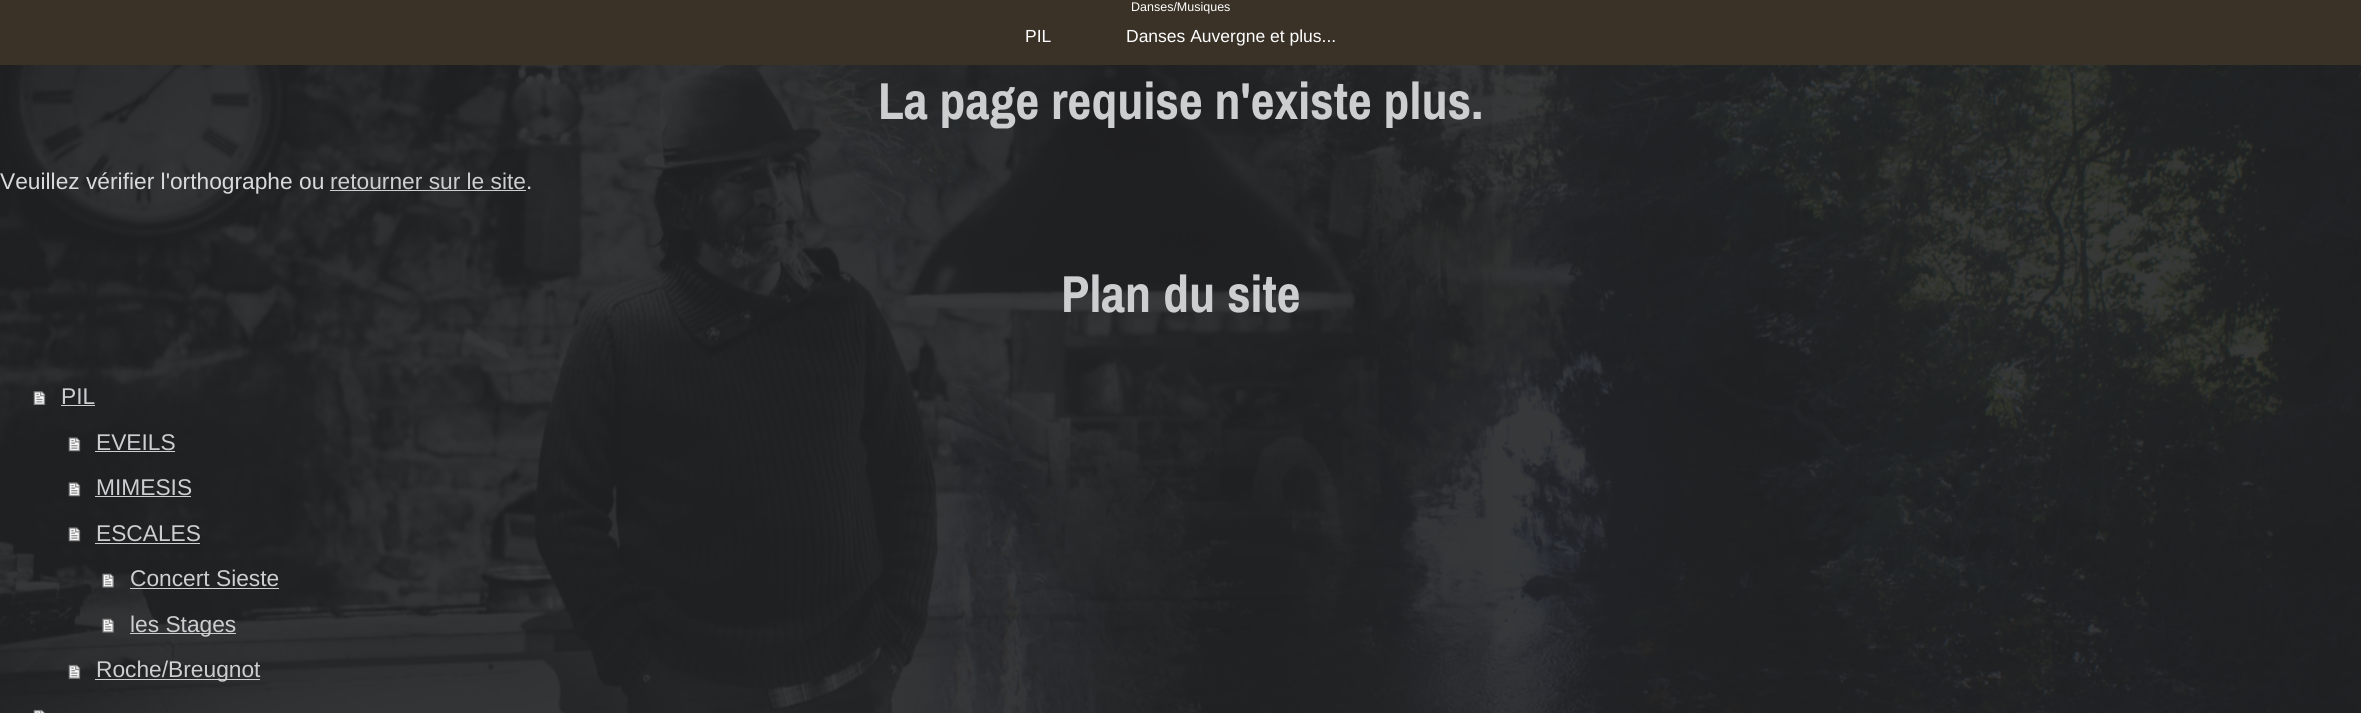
import math
import cairo

surface = cairo.ImageSurface(cairo.FORMAT_RGB24, 2361, 713)
ctx = cairo.Context(surface)
options = cairo.FontOptions()
options.set_hint_metrics(cairo.HINT_METRICS_OFF)
options.set_hint_style(cairo.HINT_STYLE_NONE)
ctx.set_font_options(options)
ctx.set_miter_limit(4)


def set_color(code):
    ctx.set_source_rgb(*(v / 255 for v in bytes.fromhex(code[-6:])))


def draw_text(x, y, s, family, size, color, bold=False, italic=False):
    ctx.select_font_face(family, cairo.FONT_SLANT_ITALIC if italic else cairo.FONT_SLANT_NORMAL, cairo.FONT_WEIGHT_BOLD if bold else cairo.FONT_WEIGHT_NORMAL)
    ctx.set_font_size(size)
    set_color(color)
    ctx.move_to(x, y)
    ctx.show_text(s)


def fill_rect(x, y, w, h, color):
    set_color(color)
    ctx.rectangle(x, y, w, h)
    ctx.fill()


def draw_image(path, x, y, w, h):
    ctx.save()
    ctx.set_source_surface(cairo.ImageSurface.create_from_png(path), x, y)
    ctx.rectangle(x, y, w, h)
    ctx.fill()
    ctx.restore()


set_color("#ffffff")
ctx.paint()
draw_image("assets/img1.png", 0, 65, 2361, 648)
fill_rect(0, 0, 2361, 65, "#3a3227")
draw_text(1131, 11, "Danses/Musiques", "Liberation Sans", 12.5, "#ffffff")
draw_text(1025, 42, "PIL", "Liberation Sans", 17.5, "#ffffff")
draw_text(1126, 42, "Danses Auvergne et plus...", "Liberation Sans", 17.5, "#ffffff")
draw_text(878, 119, "La page requise n'existe plus.", "Archivo Narrow", 52, "#cdced0", bold=True)
draw_text(0, 189, "Veuillez vérifier l'orthographe ou", "Liberation Sans", 22.75, "#d9dadb")
draw_text(330, 189, "retourner sur le site", "Liberation Sans", 22.75, "#cdced0")
fill_rect(330, 190, 196, 1, "#cdced0")
draw_text(526, 189, ".", "Liberation Sans", 22.75, "#d9dadb")
draw_text(1061, 312, "Plan du site", "Archivo Narrow", 52, "#cdced0", bold=True)
draw_image("assets/img2.png", 33, 391, 13, 14)
draw_text(61, 404, "PIL", "Liberation Sans", 22.75, "#cdced0")
fill_rect(61, 405, 34, 1, "#cdced0")
draw_image("assets/img3.png", 68, 437, 13, 15)
draw_text(96, 450, "EVEILS", "Liberation Sans", 22.75, "#cdced0")
fill_rect(95, 451, 80, 1, "#cdced0")
draw_image("assets/img4.png", 68, 482, 13, 15)
draw_text(96, 495, "MIMESIS", "Liberation Sans", 22.75, "#cdced0")
fill_rect(95, 496, 96, 1, "#cdced0")
draw_image("assets/img5.png", 68, 527, 13, 15)
draw_text(96, 541, "ESCALES", "Liberation Sans", 22.75, "#cdced0")
fill_rect(95, 543, 105, 1, "#cdced0")
draw_image("assets/img6.png", 102, 573, 12, 15)
draw_text(130, 586, "Concert Sieste", "Liberation Sans", 22.75, "#cdced0")
fill_rect(130, 588, 149, 1, "#cdced0")
draw_image("assets/img7.png", 102, 618, 12, 15)
fill_rect(130, 633, 106, 1, "#cdced0")
draw_text(130, 632, "les Stages", "Liberation Sans", 22.75, "#cdced0")
draw_image("assets/img8.png", 68, 664, 13, 15)
fill_rect(95, 679, 165, 1, "#cdced0")
draw_text(96, 677, "Roche/Breugnot", "Liberation Sans", 22.75, "#cdced0")
draw_image("assets/img9.png", 33, 709, 13, 4)
surface.write_to_png("output.png")
